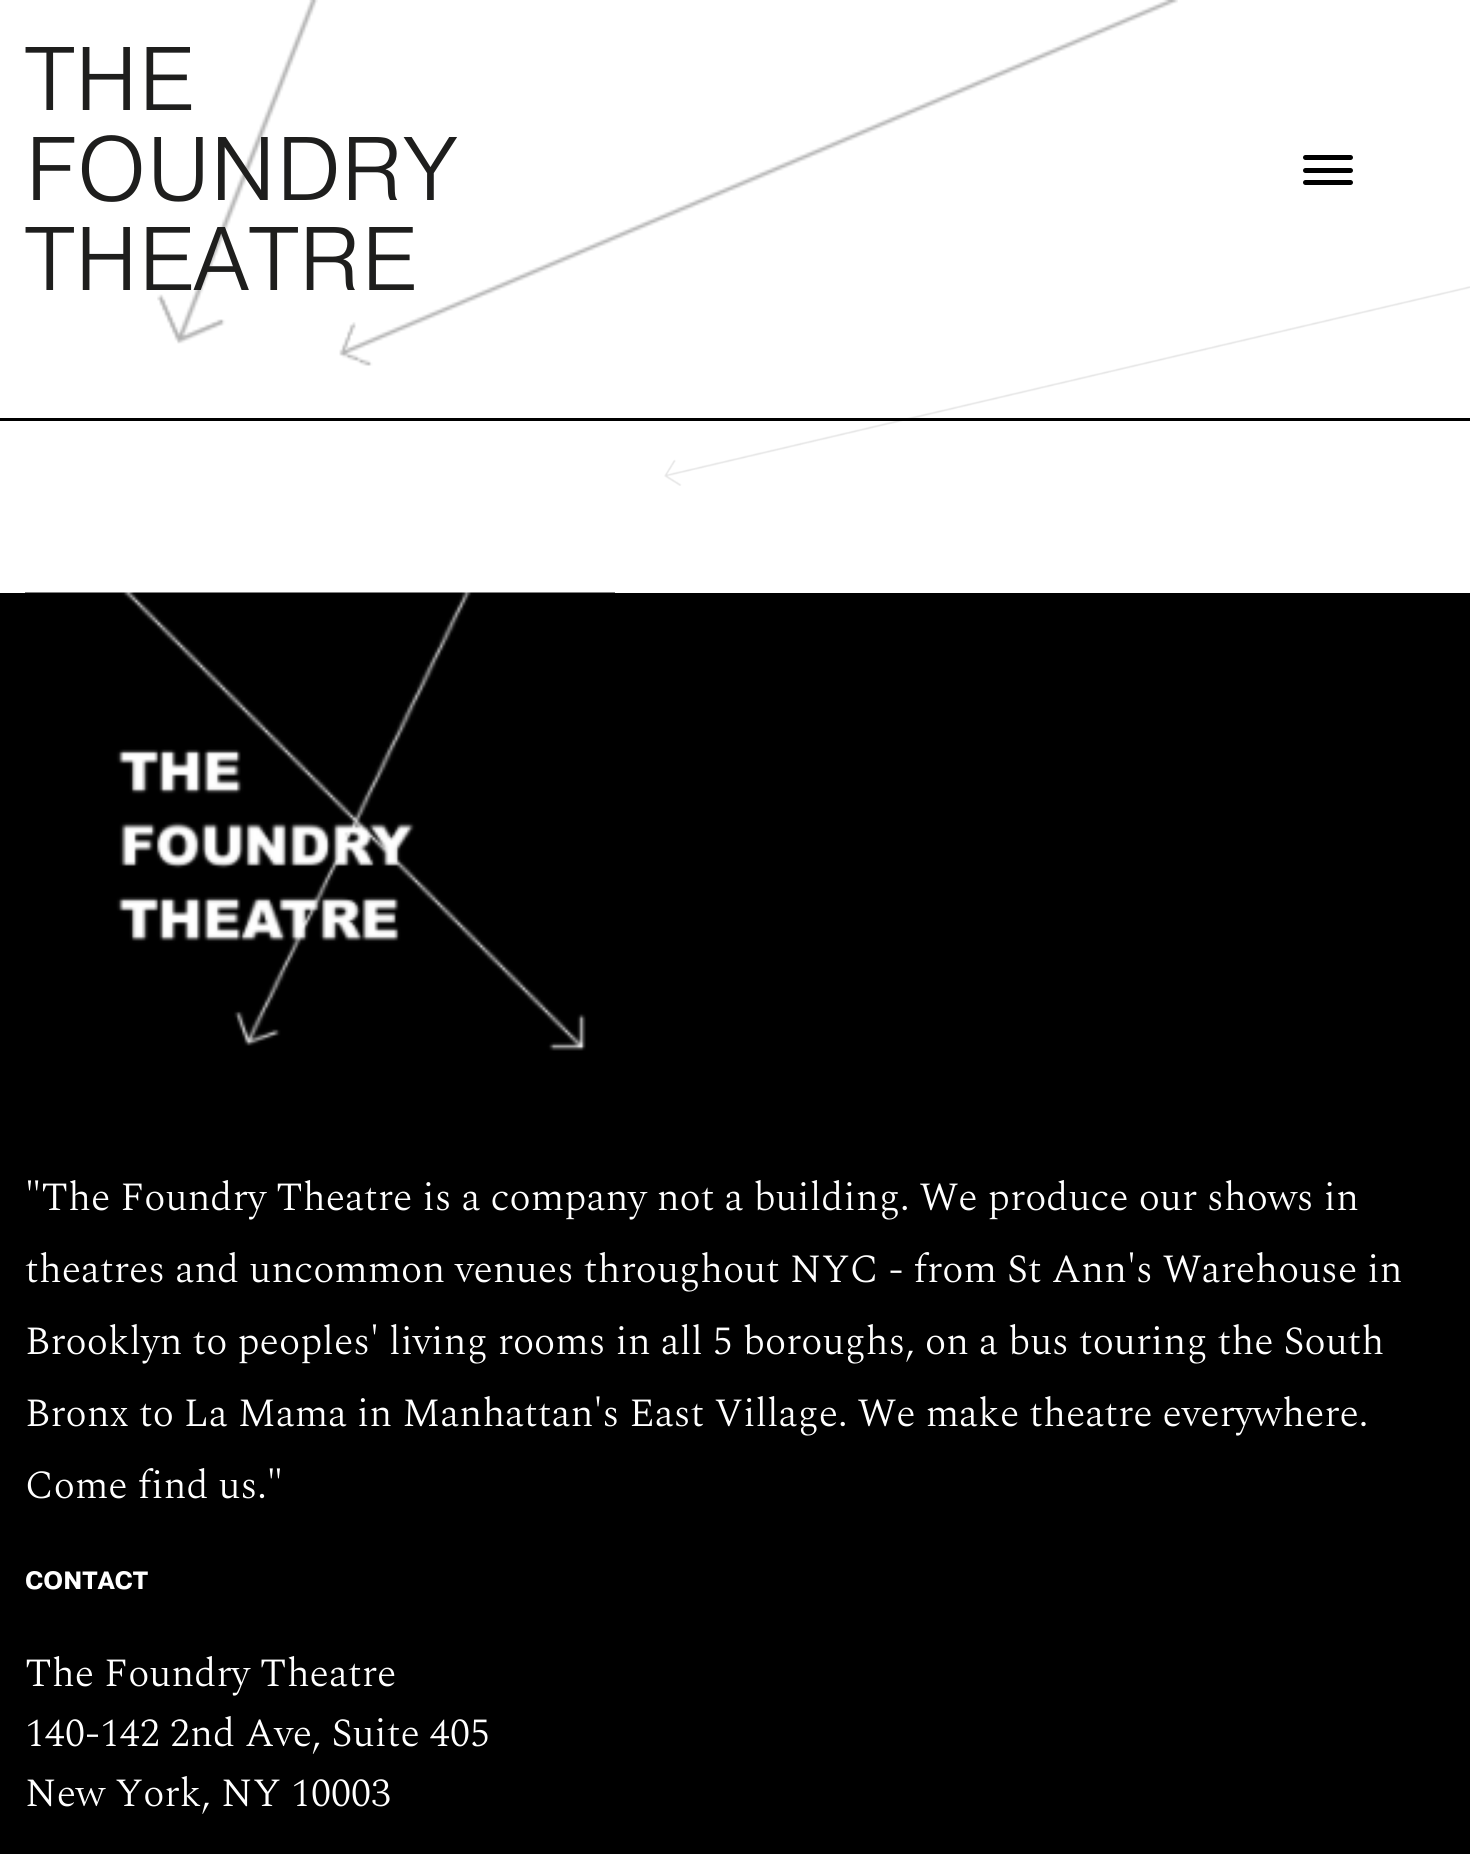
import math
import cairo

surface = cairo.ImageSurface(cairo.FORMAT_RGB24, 1470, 1854)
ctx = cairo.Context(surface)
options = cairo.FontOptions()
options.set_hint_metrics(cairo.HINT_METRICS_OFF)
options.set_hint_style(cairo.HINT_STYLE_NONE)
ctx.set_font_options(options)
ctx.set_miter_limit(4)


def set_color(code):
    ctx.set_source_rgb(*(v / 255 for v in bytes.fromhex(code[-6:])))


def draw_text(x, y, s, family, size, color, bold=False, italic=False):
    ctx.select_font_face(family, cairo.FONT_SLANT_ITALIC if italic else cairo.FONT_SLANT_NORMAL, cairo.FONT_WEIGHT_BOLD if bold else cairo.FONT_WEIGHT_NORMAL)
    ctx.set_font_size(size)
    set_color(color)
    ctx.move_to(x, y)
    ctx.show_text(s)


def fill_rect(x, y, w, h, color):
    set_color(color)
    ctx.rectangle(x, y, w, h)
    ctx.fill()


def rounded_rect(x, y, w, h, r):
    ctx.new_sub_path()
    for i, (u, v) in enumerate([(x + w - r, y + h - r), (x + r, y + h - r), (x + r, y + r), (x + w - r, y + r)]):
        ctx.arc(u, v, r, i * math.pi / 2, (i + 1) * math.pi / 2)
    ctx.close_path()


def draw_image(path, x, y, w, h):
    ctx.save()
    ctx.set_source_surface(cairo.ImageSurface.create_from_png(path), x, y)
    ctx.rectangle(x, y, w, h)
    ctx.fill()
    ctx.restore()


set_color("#ffffff")
ctx.paint()
draw_image("assets/img1.png", 664, 286, 806, 200)
fill_rect(0, 418, 1470, 3, "#000000")
draw_image("assets/img2.png", 339, 0, 839, 366)
draw_image("assets/img3.png", 157, 0, 161, 344)
draw_text(25, 110, "THE", "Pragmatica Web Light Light", 90, "#1e1e1d")
draw_text(25, 200, "FOUNDRY", "Pragmatica Web Light Light", 90, "#1e1e1d")
draw_text(25, 290, "THEATRE", "Pragmatica Web Light Light", 90, "#1e1e1d")
fill_rect(0, 593, 1470, 1261, "#000000")
draw_image("assets/img4.png", 25, 592, 590, 459)
draw_text(25, 1210, "\"The Foundry Theatre is a company not a building. We produce our shows in", "Spectral Light", 40, "#ffffff")
draw_text(25, 1282, "theatres and uncommon venues throughout NYC - from St Ann's Warehouse in", "Spectral Light", 40, "#ffffff")
draw_text(25, 1354, "Brooklyn to peoples' living rooms in all 5 boroughs, on a bus touring the South", "Spectral Light", 40, "#ffffff")
draw_text(25, 1426, "Bronx to La Mama in Manhattan's East Village. We make theatre everywhere.", "Spectral Light", 40, "#ffffff")
draw_text(25, 1498, "Come find us.\"", "Spectral Light", 40, "#ffffff")
draw_text(25, 1589, "CONTACT", "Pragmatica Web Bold", 25, "#ffffff", bold=True)
draw_text(25, 1686, "The Foundry Theatre", "Spectral Light", 40, "#ffffff")
draw_text(25, 1746, "140-142 2nd Ave, Suite 405", "Spectral Light", 40, "#ffffff")
draw_text(25, 1806, "New York, NY 10003", "Spectral Light", 40, "#ffffff")
set_color("#000000")
rounded_rect(1303, 168, 50, 5, 2.5)
ctx.fill()
rounded_rect(1303, 155, 50, 5, 2.5)
ctx.fill()
rounded_rect(1303, 180, 50, 5, 2.5)
ctx.fill()
surface.write_to_png("output.png")
